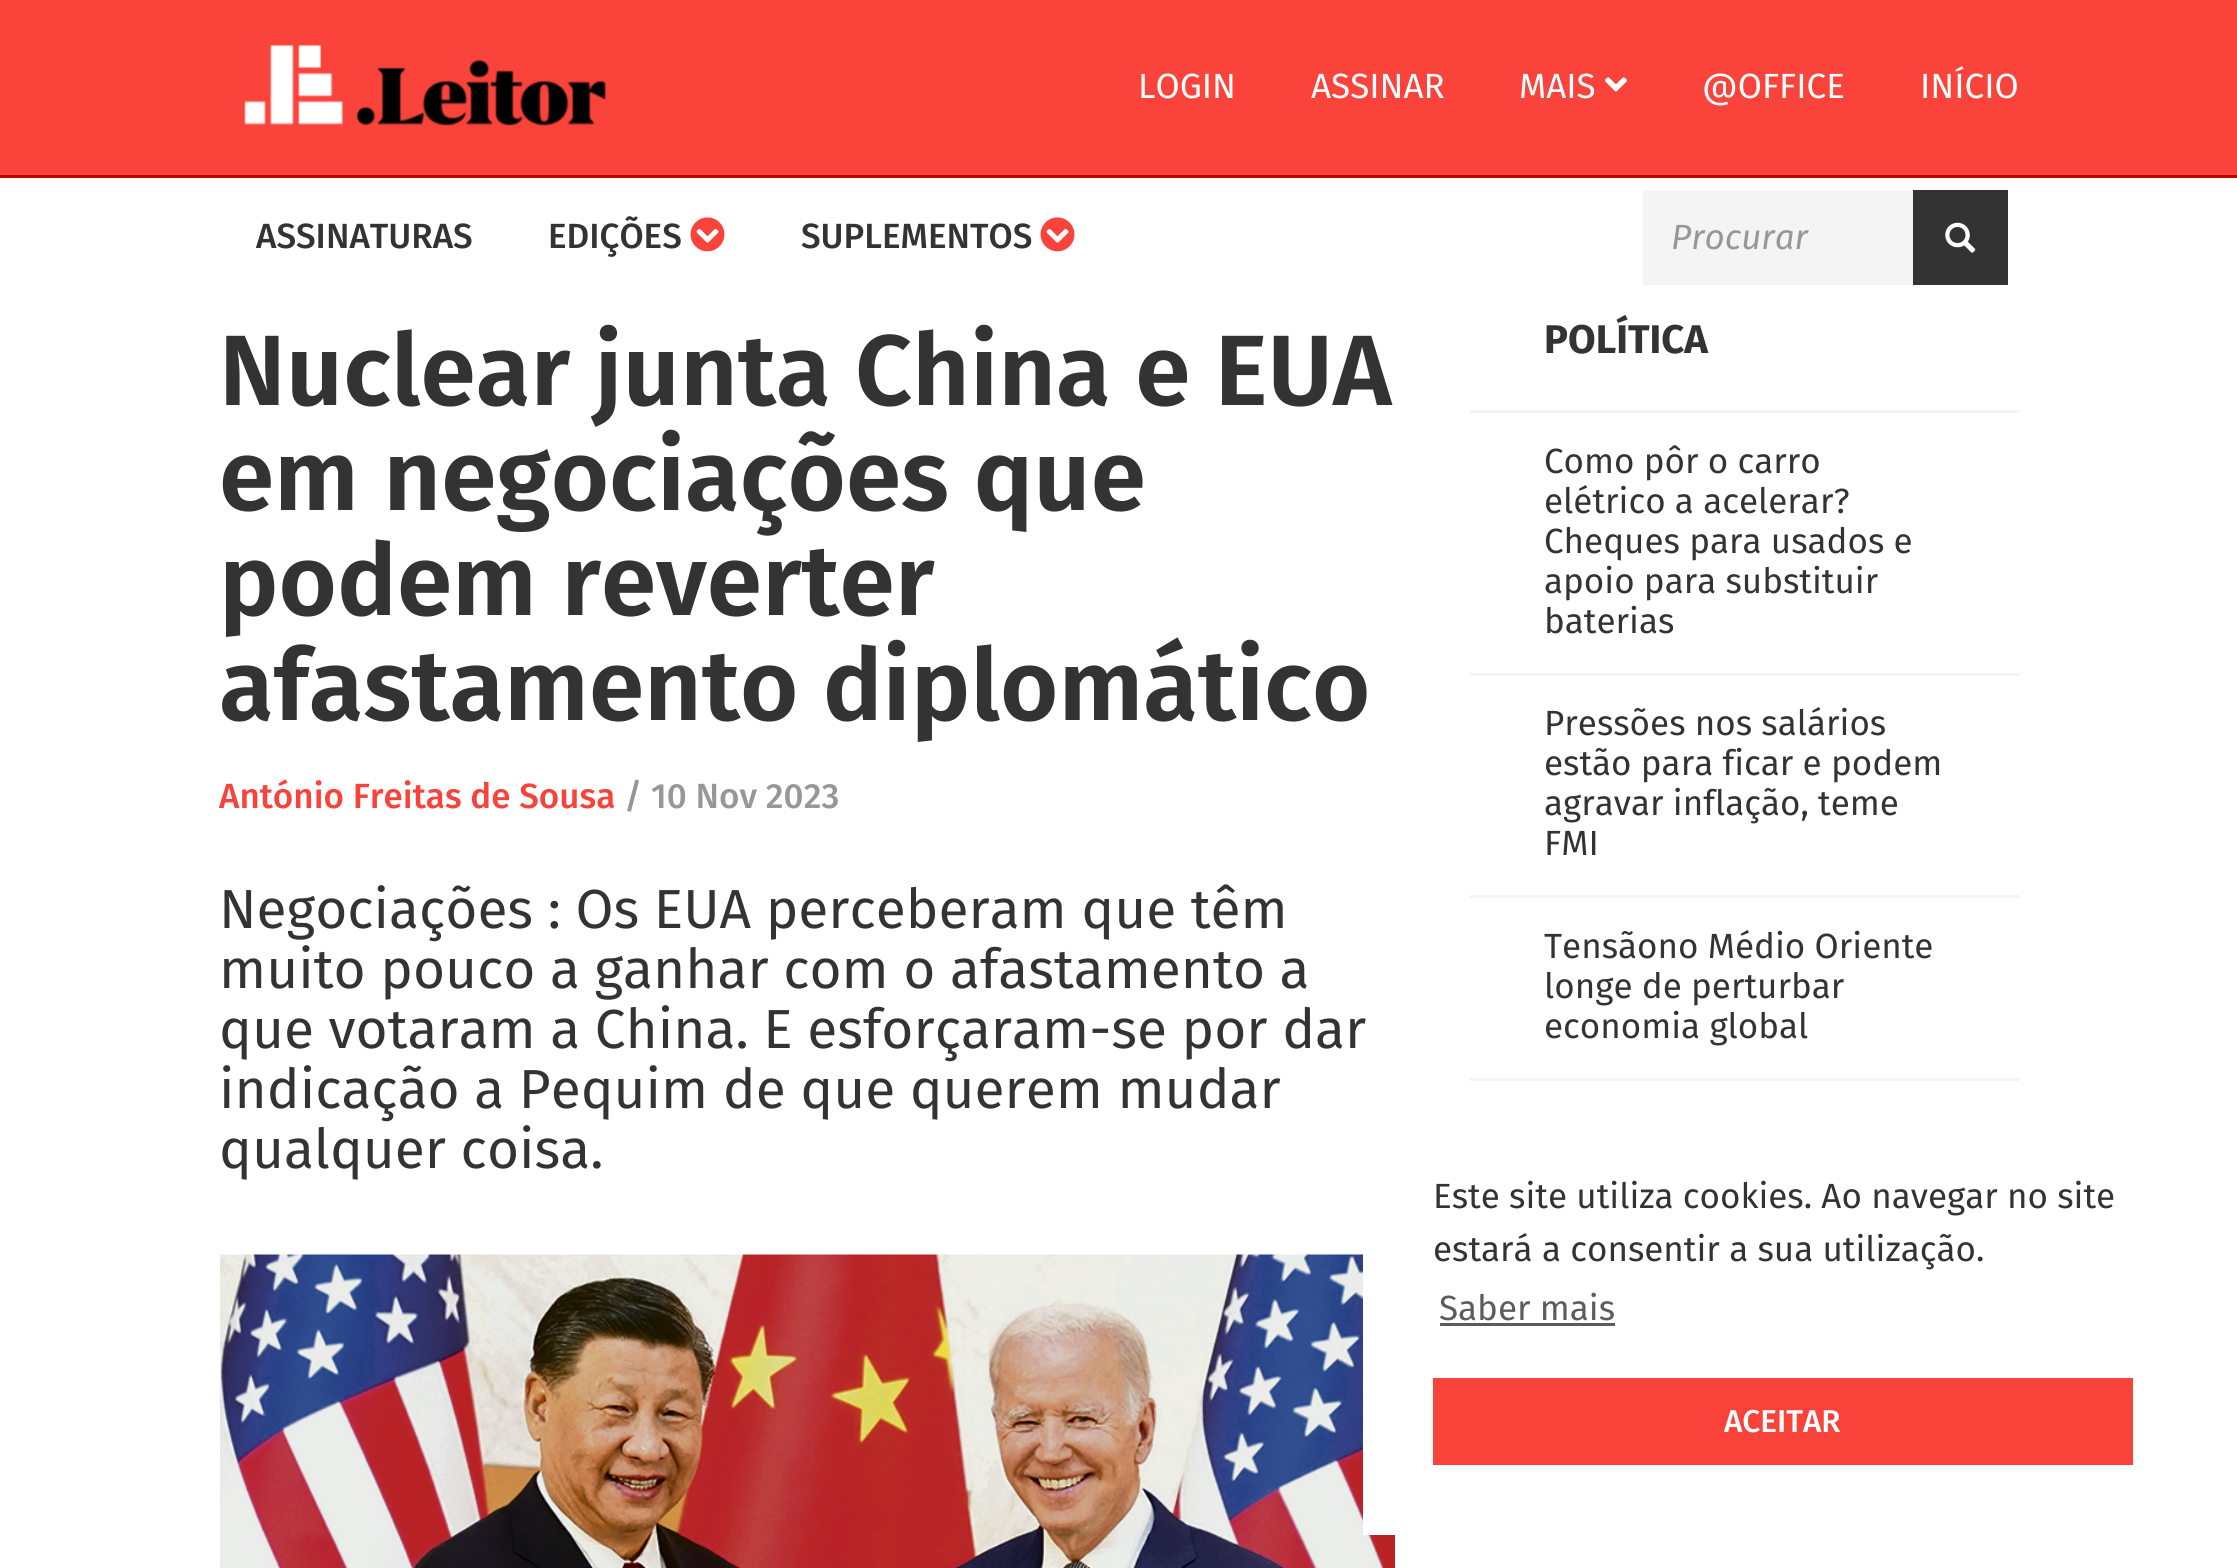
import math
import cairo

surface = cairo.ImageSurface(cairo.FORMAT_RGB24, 2237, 1568)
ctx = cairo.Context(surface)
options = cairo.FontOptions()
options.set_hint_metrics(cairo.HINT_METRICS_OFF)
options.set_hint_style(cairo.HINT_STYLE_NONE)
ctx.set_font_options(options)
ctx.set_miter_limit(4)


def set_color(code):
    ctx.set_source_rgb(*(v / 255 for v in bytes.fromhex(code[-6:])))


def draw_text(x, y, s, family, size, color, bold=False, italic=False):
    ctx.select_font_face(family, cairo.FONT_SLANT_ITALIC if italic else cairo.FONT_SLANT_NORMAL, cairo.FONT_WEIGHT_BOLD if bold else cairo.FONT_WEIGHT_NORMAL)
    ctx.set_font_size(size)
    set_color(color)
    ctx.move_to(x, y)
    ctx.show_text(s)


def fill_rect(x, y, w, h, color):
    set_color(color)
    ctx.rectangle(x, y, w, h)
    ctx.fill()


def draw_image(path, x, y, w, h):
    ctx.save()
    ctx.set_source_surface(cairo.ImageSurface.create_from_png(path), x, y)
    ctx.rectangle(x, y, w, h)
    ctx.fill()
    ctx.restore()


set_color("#ffffff")
ctx.paint()
fill_rect(0, 0, 2237, 175, "#f9433b")
fill_rect(0, 175, 2237, 3, "#b90603")
draw_image("assets/img1.png", 244, 45, 362, 81)
draw_text(1138, 98, "LOGIN", "Fira Sans", 35, "#ffffff")
draw_text(1311, 98, "ASSINAR", "Fira Sans", 35, "#ffffff")
draw_text(1519, 98, "MAIS", "Fira Sans", 35, "#ffffff")
draw_image("assets/img2.png", 1605, 77, 22, 15)
draw_text(1702, 98, "@OFFICE", "Fira Sans", 35, "#ffffff")
draw_text(1920, 98, "INÍCIO", "Fira Sans", 35, "#ffffff")
draw_text(256, 248, "ASSINATURAS", "Fira Sans Medium", 35, "#333333")
draw_text(548, 248, "EDIÇÕES", "Fira Sans Medium", 35, "#333333")
draw_image("assets/img3.png", 690, 217, 35, 35)
draw_text(801, 248, "SUPLEMENTOS", "Fira Sans Medium", 35, "#333333")
draw_image("assets/img3.png", 1040, 217, 35, 35)
fill_rect(1643, 190, 270, 95, "#f4f4f4")
draw_text(1671, 249, "Procurar", "Fira Sans", 35, "#979797", italic=True)
fill_rect(1913, 190, 95, 95, "#333333")
draw_image("assets/img4.png", 1945, 222, 31, 31)
draw_text(219, 405, "Nuclear junta China e EUA", "Fira Sans SemiBold", 100, "#333333")
draw_text(219, 510, "em negociações que", "Fira Sans SemiBold", 100, "#333333")
draw_text(219, 615, "podem reverter", "Fira Sans SemiBold", 100, "#333333")
draw_text(219, 720, "afastamento diplomático", "Fira Sans SemiBold", 100, "#333333")
draw_text(219, 808, "António Freitas de Sousa", "Fira Sans Medium", 35, "#f9423a")
draw_text(624, 808, "/ 10 Nov 2023", "Fira Sans Medium", 35, "#979797")
draw_text(219, 928, "Negociações : Os EUA perceberam que têm", "Fira Sans", 55, "#333333")
draw_text(219, 988, "muito pouco a ganhar com o afastamento a", "Fira Sans", 55, "#333333")
draw_text(219, 1048, "que votaram a China. E esforçaram-se por dar", "Fira Sans", 55, "#333333")
draw_text(219, 1108, "indicação a Pequim de que querem mudar", "Fira Sans", 55, "#333333")
draw_text(219, 1168, "qualquer coisa.", "Fira Sans", 55, "#333333")
draw_image("assets/img5.png", 220, 1254, 1175, 314)
draw_text(1544, 353, "POLÍTICA", "Fira Sans", 40, "#333333", bold=True)
fill_rect(1470, 410, 550, 3, "#f4f4f4")
draw_text(1544, 473, "Como pôr o carro", "Fira Sans", 35, "#333333")
draw_text(1544, 513, "elétrico a acelerar?", "Fira Sans", 35, "#333333")
draw_text(1544, 553, "Cheques para usados e", "Fira Sans", 35, "#333333")
draw_text(1544, 593, "apoio para substituir", "Fira Sans", 35, "#333333")
draw_text(1544, 633, "baterias", "Fira Sans", 35, "#333333")
fill_rect(1470, 673, 550, 3, "#f4f4f4")
draw_text(1544, 735, "Pressões nos salários", "Fira Sans", 35, "#333333")
draw_text(1544, 775, "estão para ficar e podem", "Fira Sans", 35, "#333333")
draw_text(1544, 815, "agravar inflação, teme", "Fira Sans", 35, "#333333")
draw_text(1544, 855, "FMI", "Fira Sans", 35, "#333333")
fill_rect(1470, 895, 550, 3, "#f4f4f4")
draw_text(1544, 958, "Tensãono Médio Oriente", "Fira Sans", 35, "#333333")
draw_text(1544, 998, "longe de perturbar", "Fira Sans", 35, "#333333")
draw_text(1544, 1038, "economia global", "Fira Sans", 35, "#333333")
fill_rect(1470, 1078, 550, 3, "#f4f4f4")
fill_rect(1363, 1254, 32, 281, "#ffffff")
draw_text(1433, 1208, "Este site utiliza cookies. Ao navegar no site", "Fira Sans", 35, "#333333")
draw_text(1433, 1261, "estará a consentir a sua utilização.", "Fira Sans", 35, "#333333")
draw_text(1439, 1320, "Saber mais", "Fira Sans", 35, "#5c5c5c")
fill_rect(1440, 1323, 175, 3, "#5c5c5c")
fill_rect(1433, 1378, 700, 87, "#f9423a")
draw_text(1724, 1432, "ACEITAR", "Fira Sans Medium", 31.5, "#ffffff")
surface.write_to_png("output.png")
